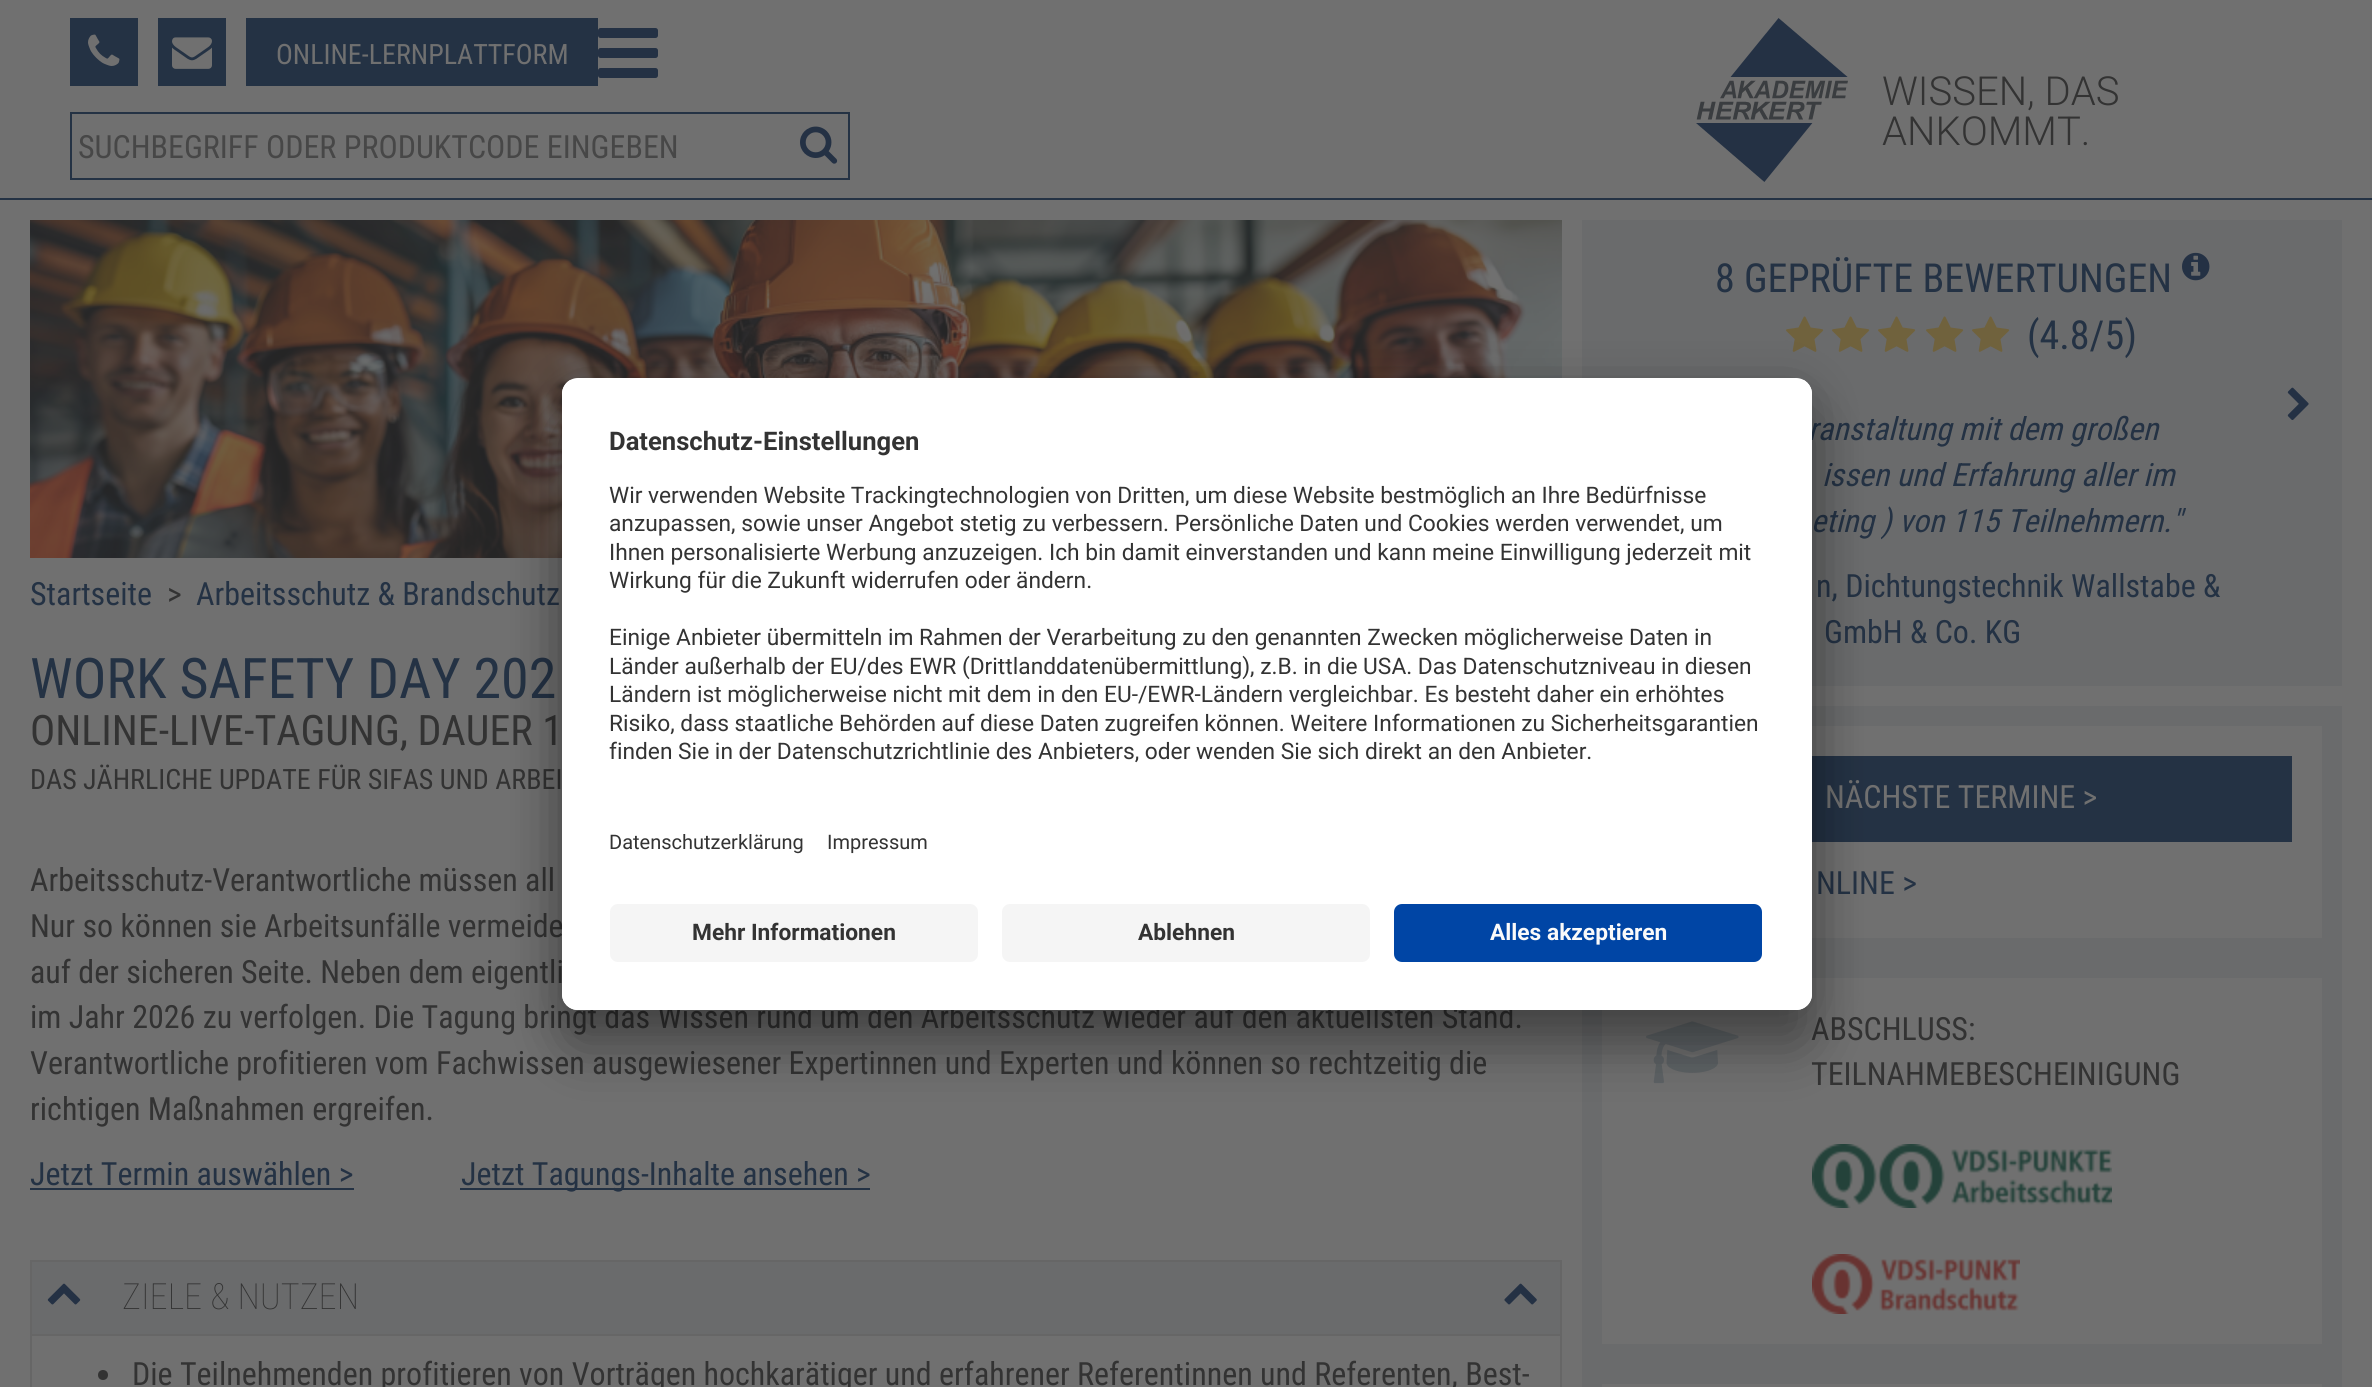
import math
import cairo

surface = cairo.ImageSurface(cairo.FORMAT_RGB24, 2372, 1387)
ctx = cairo.Context(surface)
options = cairo.FontOptions()
options.set_hint_metrics(cairo.HINT_METRICS_OFF)
options.set_hint_style(cairo.HINT_STYLE_NONE)
ctx.set_font_options(options)
ctx.set_miter_limit(4)


def set_color(code):
    ctx.set_source_rgb(*(v / 255 for v in bytes.fromhex(code[-6:])))


def draw_text(x, y, s, family, size, color, bold=False, italic=False):
    ctx.select_font_face(family, cairo.FONT_SLANT_ITALIC if italic else cairo.FONT_SLANT_NORMAL, cairo.FONT_WEIGHT_BOLD if bold else cairo.FONT_WEIGHT_NORMAL)
    ctx.set_font_size(size)
    set_color(color)
    ctx.move_to(x, y)
    ctx.show_text(s)


def draw_spaced(x, y, s, letter, word):
    ctx.move_to(x, y)
    for ch in s:
        ctx.show_text(ch)
        ctx.rel_move_to(letter + word * (ch == ' '), 0)


def fill_rect(x, y, w, h, color):
    set_color(color)
    ctx.rectangle(x, y, w, h)
    ctx.fill()


def rounded_rect(x, y, w, h, r):
    ctx.new_sub_path()
    for i, (u, v) in enumerate([(x + w - r, y + h - r), (x + r, y + h - r), (x + r, y + r), (x + w - r, y + r)]):
        ctx.arc(u, v, r, i * math.pi / 2, (i + 1) * math.pi / 2)
    ctx.close_path()


def draw_shadow(x, y, w, h, r, blur, alpha):
    ctx.push_group_with_content(cairo.CONTENT_ALPHA)
    ctx.set_operator(cairo.OPERATOR_SOURCE)
    for i in range(15, -16, -2):
        e = blur * i / 6
        if min(w, h) + 2 * e > 0:
            ctx.set_source_rgba(0, 0, 0, alpha * math.erfc((i - 1) / 8.5) / 2)
            rounded_rect(x - e, y - e, w + 2 * e, h + 2 * e, max(0, min(r + e + blur * .6, min(w, h) / 2 + e)))
            ctx.fill()
    ctx.mask(ctx.pop_group())


def draw_image(path, x, y, w, h):
    ctx.save()
    ctx.set_source_surface(cairo.ImageSurface.create_from_png(path), x, y)
    ctx.rectangle(x, y, w, h)
    ctx.fill()
    ctx.restore()


set_color("#707070")
ctx.paint()
fill_rect(0, 198, 2372, 2, "#243244")
fill_rect(70, 18, 68, 68, "#243244")
draw_image("assets/img1.png", 88, 34, 32, 32)
fill_rect(158, 18, 68, 68, "#243244")
draw_image("assets/img2.png", 172, 37, 40, 32)
fill_rect(246, 18, 352, 68, "#243244")
draw_text(276, 64, "ONLINE-LERNPLATTFORM", "Roboto Condensed", 28, "#707070")
draw_image("assets/img3.png", 598, 28, 60, 50)
ctx.rectangle(71, 113, 778, 66)
set_color("#243244")
ctx.stroke()
draw_text(78, 158, "SUCHBEGRIFF ODER PRODUKTCODE EINGEBEN", "Roboto Condensed", 32, "#474747")
draw_image("assets/img4.png", 800, 126, 38, 38)
draw_image("assets/img5.png", 1696, 18, 152, 164)
draw_text(1882, 105, "WISSEN, DAS", "Roboto Light", 40, "#333333")
draw_text(1882, 145, "ANKOMMT.", "Roboto Light", 40, "#333333")
draw_image("assets/img6.png", 30, 220, 1532, 338)
draw_text(30, 605, "Startseite", "Roboto Condensed", 32, "#243244")
draw_text(167, 605, ">", "Roboto Condensed", 32, "#333333")
draw_text(196, 605, "Arbeitsschutz & Brandschutz", "Roboto Condensed", 32, "#243244")
draw_text(30, 698, "WORK SAFETY DAY 202", "Roboto Condensed", 56, "#243244")
draw_text(30, 745, "ONLINE-LIVE-TAGUNG, DAUER 1", "Roboto Condensed", 42, "#333333")
draw_text(30, 789, "DAS JÄHRLICHE UPDATE FÜR SIFAS UND ARBEI", "Roboto Condensed", 28, "#333333")
draw_text(30, 891, "Arbeitsschutz-Verantwortliche müssen all", "Roboto Condensed", 32, "#333333")
draw_text(30, 937, "Nur so können sie Arbeitsunfälle vermeide", "Roboto Condensed", 32, "#333333")
draw_text(30, 983, "auf der sicheren Seite. Neben dem eigentli", "Roboto Condensed", 32, "#333333")
draw_text(30, 1028, "im Jahr 2026 zu verfolgen. Die Tagung bringt das Wissen rund um den Arbeitsschutz wieder auf den aktuellsten Stand.", "Roboto Condensed", 32, "#333333")
draw_text(30, 1074, "Verantwortliche profitieren vom Fachwissen ausgewiesener Expertinnen und Experten und können so rechtzeitig die", "Roboto Condensed", 32, "#333333")
draw_text(30, 1120, "richtigen Maßnahmen ergreifen.", "Roboto Condensed", 32, "#333333")
draw_text(30, 1185, "Jetzt Termin auswählen >", "Roboto Condensed", 32, "#243244")
fill_rect(30, 1188, 324, 2, "#243244")
fill_rect(460, 1188, 410, 2, "#243244")
draw_text(461, 1185, "Jetzt Tagungs-Inhalte ansehen >", "Roboto Condensed", 32, "#243244")
fill_rect(30, 1260, 1532, 2, "#666666")
fill_rect(1560, 1260, 2, 127, "#666666")
fill_rect(30, 1260, 2, 127, "#666666")
fill_rect(32, 1262, 1528, 72, "#6a6b6c")
fill_rect(32, 1334, 1528, 2, "#666666")
draw_image("assets/img7.png", 47, 1283, 34, 22)
draw_text(122, 1309, "ZIELE & NUTZEN", "Roboto Condensed Thin", 36, "#333333")
draw_image("assets/img8.png", 1504, 1283, 33, 22)
ctx.arc(103, 1375, 5, 0, 2 * math.pi)
ctx.fill()
draw_text(132, 1385, "Die Teilnehmenden profitieren von Vorträgen hochkarätiger und erfahrener Referentinnen und Referenten, Best-", "Roboto Condensed", 32, "#333333")
fill_rect(1582, 220, 760, 466, "#6a6b6c")
draw_text(1715, 292, "8 GEPRÜFTE BEWERTUNGEN", "Roboto Condensed", 40, "#243244")
draw_image("assets/img9.png", 2182, 252, 28, 29)
draw_image("assets/img10.png", 1786, 316, 38, 36)
draw_image("assets/img10.png", 1832, 316, 38, 36)
draw_image("assets/img10.png", 1878, 316, 38, 36)
draw_image("assets/img10.png", 1926, 316, 38, 36)
draw_image("assets/img10.png", 1972, 316, 38, 36)
draw_text(2027, 349, "(4.8/5)", "Roboto Condensed", 40, "#243244")
draw_image("assets/img11.png", 2287, 387, 22, 33)
draw_text(1808, 440, "ranstaltung mit dem großen", "Roboto Condensed", 32, "#243244", italic=True)
draw_text(1822, 486, "issen und Erfahrung aller im", "Roboto Condensed", 32, "#243244", italic=True)
draw_text(1811, 532, "eting ) von 115 Teilnehmern.\"", "Roboto Condensed", 32, "#243244", italic=True)
draw_text(1816, 597, "n, Dichtungstechnik Wallstabe &", "Roboto Condensed", 32, "#243244")
draw_text(1824, 643, "GmbH & Co. KG", "Roboto Condensed", 32, "#243244")
fill_rect(1582, 706, 760, 681, "#6a6b6c")
fill_rect(1812, 726, 510, 212, "#707070")
fill_rect(1812, 756, 480, 86, "#243244")
draw_text(1825, 808, "NÄCHSTE TERMINE >", "Roboto Condensed", 32, "#707070")
draw_text(1816, 894, "NLINE >", "Roboto Condensed", 32, "#243244")
fill_rect(1602, 978, 720, 366, "#707070")
draw_image("assets/img12.png", 1646, 1021, 93, 63)
draw_text(1811, 1040, "ABSCHLUSS:", "Roboto Condensed", 32, "#333333")
draw_text(1811, 1085, "TEILNAHMEBESCHEINIGUNG", "Roboto Condensed", 32, "#333333")
draw_image("assets/img13.png", 1812, 1144, 300, 64)
draw_image("assets/img14.png", 1812, 1254, 208, 60)
fill_rect(1602, 1384, 720, 3, "#707070")
set_color("#000000")
draw_shadow(562, 418, 1250, 632, 16, 28, 0.3)
draw_shadow(562, 388, 1250, 632, 16, 26, 0.22)
set_color("#ffffff")
rounded_rect(562, 378, 1250, 632, 16)
ctx.fill()
ctx.save()
rounded_rect(562, 378, 1250, 632, 16)
ctx.clip()
ctx.new_path()
ctx.move_to(578, 378)
ctx.line_to(1796, 378)
ctx.curve_to(1805, 378, 1812, 385, 1812, 394)
ctx.line_to(1812, 888)
ctx.line_to(562, 888)
ctx.line_to(562, 394)
ctx.curve_to(562, 385, 569, 378, 578, 378)
ctx.close_path()
ctx.clip()
fill_rect(562, 380, 1250, 508, "#ffffff")
ctx.restore()
draw_text(609, 450, "Datenschutz-Einstellungen", "Roboto", 25.6, "#333333", bold=True)
ctx.select_font_face("Roboto")
ctx.set_font_size(22.75)
draw_spaced(609, 503, "Wir verwenden Website Trackingtechnologien von Dritten, um diese Website bestmöglich an Ihre Bedürfnisse", 0, -0.1)
draw_text(609, 531, "anzupassen, sowie unser Angebot stetig zu verbessern. Persönliche Daten und Cookies werden verwendet, um", "Roboto", 22.75, "#333333")
draw_text(609, 560, "Ihnen personalisierte Werbung anzuzeigen. Ich bin damit einverstanden und kann meine Einwilligung jederzeit mit", "Roboto", 22.75, "#333333")
draw_text(609, 588, "Wirkung für die Zukunft widerrufen oder ändern.", "Roboto", 22.75, "#333333")
draw_text(609, 645, "Einige Anbieter übermitteln im Rahmen der Verarbeitung zu den genannten Zwecken möglicherweise Daten in", "Roboto", 22.75, "#333333")
draw_text(609, 674, "Länder außerhalb der EU/des EWR (Drittlanddatenübermittlung), z.B. in die USA. Das Datenschutzniveau in diesen", "Roboto", 22.75, "#333333")
draw_text(609, 702, "Ländern ist möglicherweise nicht mit dem in den EU-/EWR-Ländern vergleichbar. Es besteht daher ein erhöhtes", "Roboto", 22.75, "#333333")
draw_spaced(609, 731, "Risiko, dass staatliche Behörden auf diese Daten zugreifen können. Weitere Informationen zu Sicherheitsgarantien", 0, -0.1)
draw_text(609, 759, "finden Sie in der Datenschutzrichtlinie des Anbieters, oder wenden Sie sich direkt an den Anbieter.", "Roboto", 22.75, "#333333")
draw_text(609, 849, "Datenschutzerklärung", "Roboto", 20, "#333333")
draw_text(827, 849, "Impressum", "Roboto", 20, "#333333")
set_color("#ffffff")
ctx.new_path()
ctx.move_to(562, 888)
ctx.line_to(1812, 888)
ctx.line_to(1812, 994)
ctx.curve_to(1812, 1003, 1805, 1010, 1796, 1010)
ctx.line_to(578, 1010)
ctx.curve_to(569, 1010, 562, 1003, 562, 994)
ctx.close_path()
ctx.fill()
set_color("#f5f5f5")
rounded_rect(610, 904, 368, 58, 8)
ctx.fill()
draw_text(692, 940, "Mehr Informationen", "Roboto", 22.75, "#333333", bold=True)
set_color("#f5f5f5")
rounded_rect(1002, 904, 368, 58, 8)
ctx.fill()
draw_text(1138, 940, "Ablehnen", "Roboto", 22.75, "#333333", bold=True)
set_color("#0045a5")
rounded_rect(1394, 904, 368, 58, 8)
ctx.fill()
draw_text(1490, 940, "Alles akzeptieren", "Roboto", 22.75, "#fafafa", bold=True)
surface.write_to_png("output.png")
